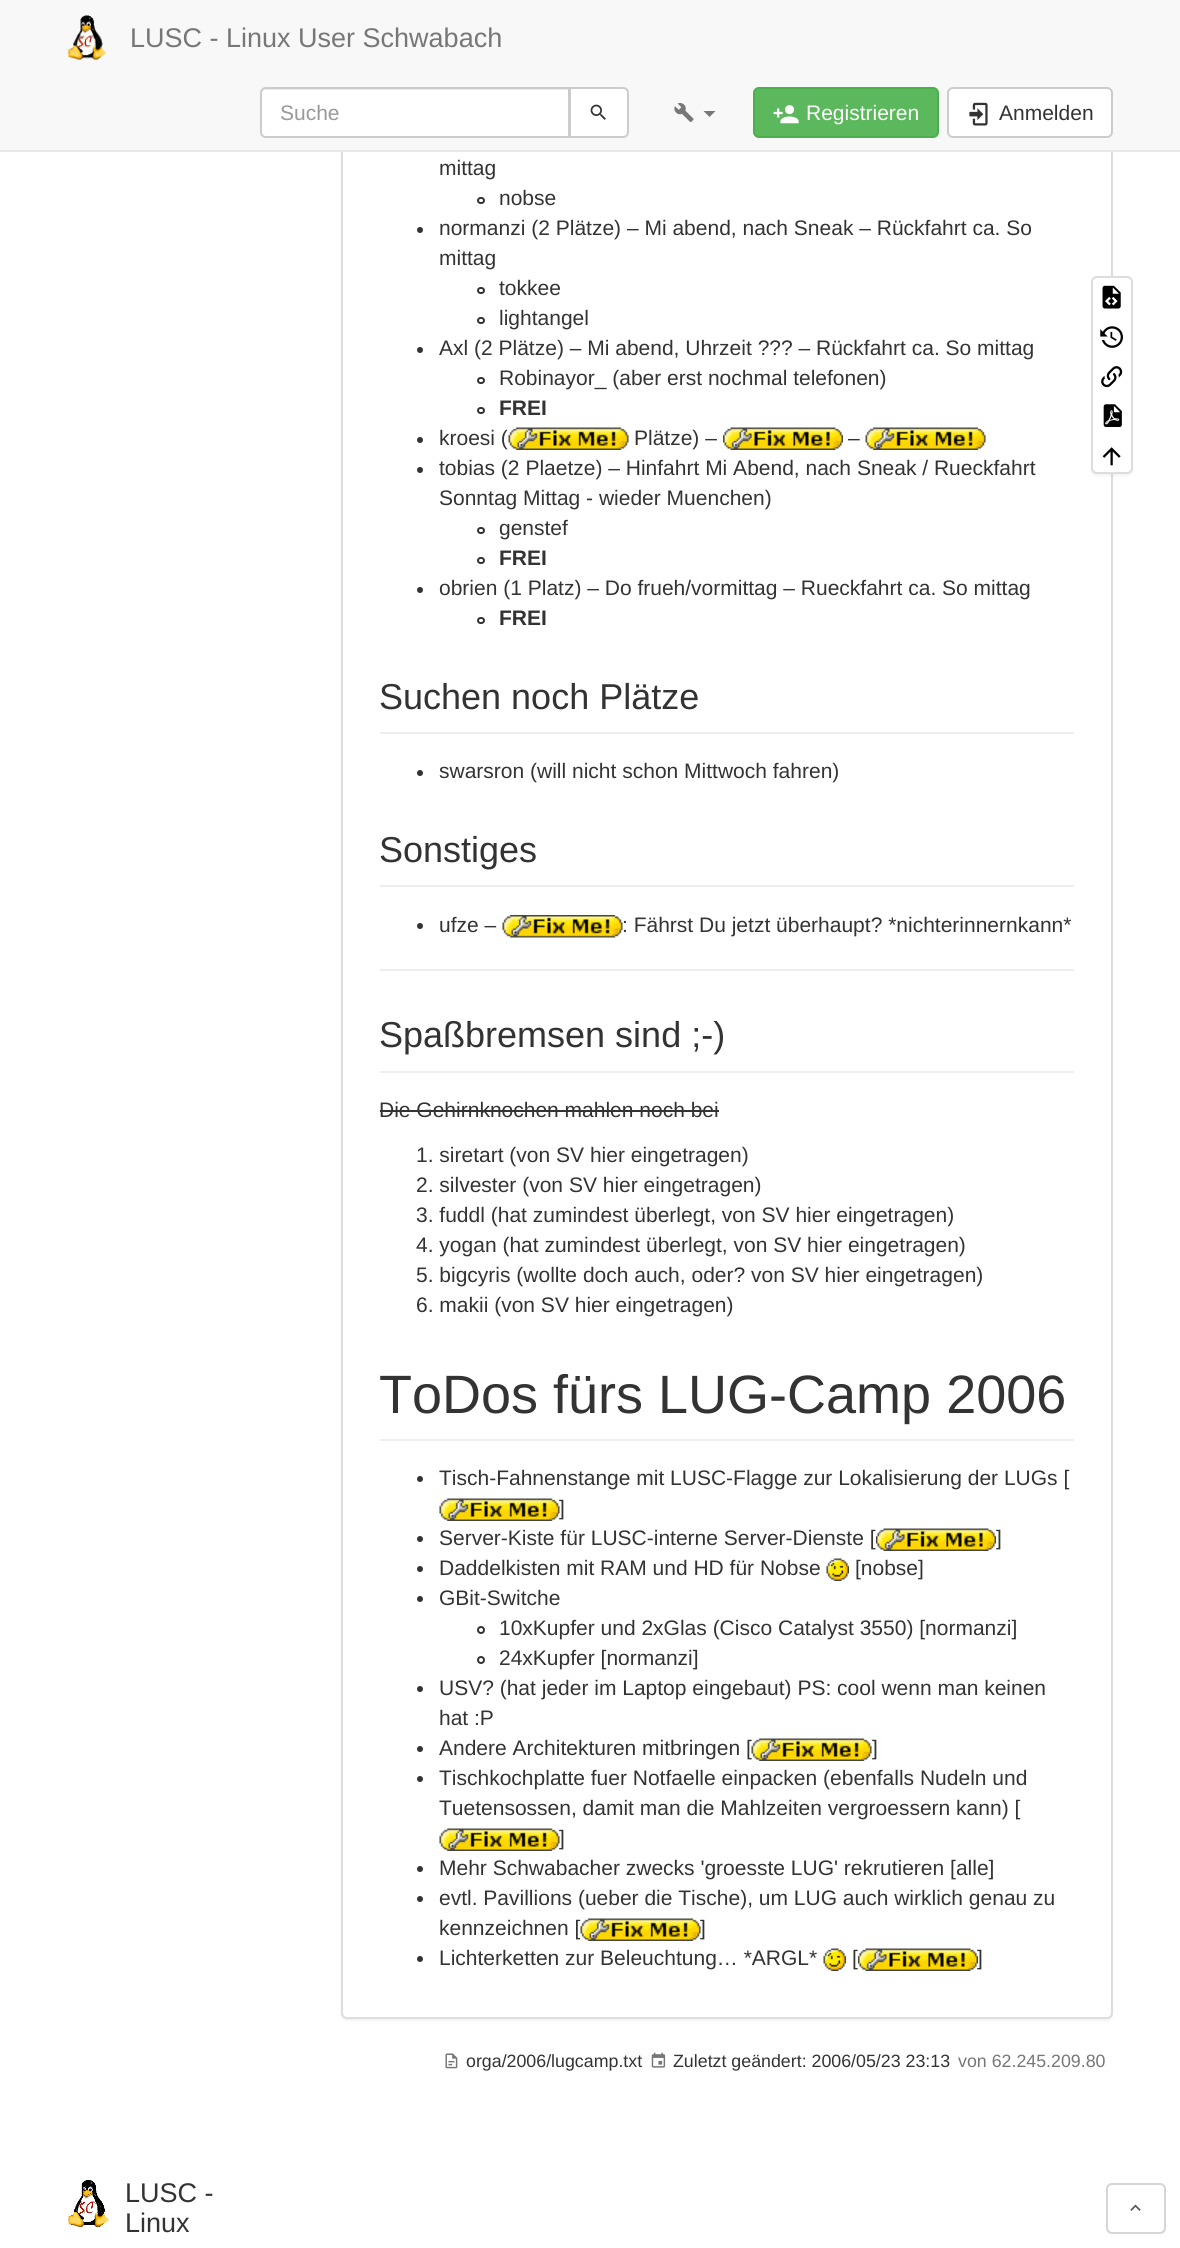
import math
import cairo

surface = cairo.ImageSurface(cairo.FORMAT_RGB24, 1180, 2248)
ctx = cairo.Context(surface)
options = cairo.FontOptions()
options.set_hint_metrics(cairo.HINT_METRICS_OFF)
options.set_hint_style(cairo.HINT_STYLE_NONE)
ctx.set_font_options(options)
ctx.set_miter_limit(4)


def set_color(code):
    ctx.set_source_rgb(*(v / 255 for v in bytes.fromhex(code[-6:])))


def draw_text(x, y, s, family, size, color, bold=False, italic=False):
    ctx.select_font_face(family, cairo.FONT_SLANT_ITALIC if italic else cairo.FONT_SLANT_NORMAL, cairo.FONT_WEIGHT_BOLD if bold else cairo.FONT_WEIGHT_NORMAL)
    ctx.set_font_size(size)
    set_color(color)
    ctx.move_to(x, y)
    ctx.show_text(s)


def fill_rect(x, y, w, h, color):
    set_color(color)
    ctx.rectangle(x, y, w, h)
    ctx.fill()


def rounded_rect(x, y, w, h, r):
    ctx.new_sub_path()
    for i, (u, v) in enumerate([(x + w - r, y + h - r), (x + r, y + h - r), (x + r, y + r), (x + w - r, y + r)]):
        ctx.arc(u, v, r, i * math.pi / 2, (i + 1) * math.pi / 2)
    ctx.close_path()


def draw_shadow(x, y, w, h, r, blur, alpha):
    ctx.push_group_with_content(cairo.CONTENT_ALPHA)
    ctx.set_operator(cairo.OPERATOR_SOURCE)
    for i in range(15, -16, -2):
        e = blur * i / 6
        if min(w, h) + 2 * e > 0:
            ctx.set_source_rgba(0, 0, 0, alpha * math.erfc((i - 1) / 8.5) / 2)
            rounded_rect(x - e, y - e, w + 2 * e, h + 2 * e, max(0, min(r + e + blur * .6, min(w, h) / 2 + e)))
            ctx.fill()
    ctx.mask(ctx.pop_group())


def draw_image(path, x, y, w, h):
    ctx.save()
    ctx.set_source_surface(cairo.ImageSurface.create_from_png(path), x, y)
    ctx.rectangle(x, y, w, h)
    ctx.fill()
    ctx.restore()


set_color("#ffffff")
ctx.paint()
set_color("#000000")
draw_shadow(341, -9, 772, 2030, 6, 1, 0.05)
set_color("#ffffff")
rounded_rect(342, -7, 770, 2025, 5)
ctx.fill_preserve()
set_color("#dddddd")
ctx.stroke()
fill_rect(0, 0, 1180, 150, "#f8f8f8")
fill_rect(0, 150, 1180, 2, "#e7e7e7")
draw_image("assets/img1.png", 68, 15, 38, 45)
draw_text(130, 47, "LUSC - Linux User Schwabach", "Liberation Sans", 27, "#777777")
set_color("#ffffff")
ctx.new_path()
ctx.move_to(266, 87)
ctx.line_to(570, 87)
ctx.line_to(570, 138)
ctx.line_to(266, 138)
ctx.curve_to(262.5, 138, 260, 135.5, 260, 132)
ctx.line_to(260, 93)
ctx.curve_to(260, 89.5, 262.5, 87, 266, 87)
ctx.close_path()
ctx.fill()
set_color("#ececec")
ctx.new_path()
ctx.move_to(266, 90)
ctx.line_to(568, 90)
ctx.line_to(568, 137)
ctx.line_to(569, 137)
ctx.line_to(569, 89)
ctx.line_to(266, 89)
ctx.curve_to(263, 89, 261, 91, 261, 94)
ctx.curve_to(261, 92, 263, 90, 266, 90)
ctx.close_path()
ctx.fill()
ctx.new_path()
ctx.move_to(266, 88)
ctx.line_to(569, 88)
ctx.line_to(569, 137)
ctx.line_to(266, 137)
ctx.curve_to(263, 137, 261, 135, 261, 132)
ctx.line_to(261, 93)
ctx.curve_to(261, 90, 263, 88, 266, 88)
ctx.close_path()
set_color("#cccccc")
ctx.stroke()
draw_text(280, 120, "Suche", "Liberation Sans", 21, "#999999")
set_color("#ffffff")
ctx.new_path()
ctx.move_to(570, 88)
ctx.line_to(623, 88)
ctx.curve_to(626, 88, 628, 90, 628, 93)
ctx.line_to(628, 132)
ctx.curve_to(628, 135, 626, 137, 623, 137)
ctx.line_to(570, 137)
ctx.close_path()
ctx.fill_preserve()
set_color("#cccccc")
ctx.stroke()
draw_image("assets/img2.png", 590, 104, 16, 16)
draw_image("assets/img3.png", 674, 103, 20, 20)
set_color("#777777")
ctx.new_path()
ctx.move_to(703.5, 111)
ctx.line_to(715.5, 111)
ctx.line_to(709.5, 117)
ctx.close_path()
ctx.fill()
set_color("#5cb85c")
rounded_rect(754, 88, 184, 49, 5)
ctx.fill_preserve()
set_color("#4cae4c")
ctx.stroke()
draw_image("assets/img4.png", 773, 105, 26, 19)
draw_text(806, 120, "Registrieren", "Liberation Sans", 21, "#ffffff")
rounded_rect(948, 88, 164, 49, 5)
ctx.fill_preserve()
set_color("#cccccc")
ctx.stroke()
draw_image("assets/img5.png", 969, 102, 19, 24)
draw_text(999, 120, "Anmelden", "Liberation Sans", 21, "#333333")
draw_text(439, 175, "mittag", "Liberation Sans", 21, "#333333")
rounded_rect(478, 198, 6, 5, 2.5)
ctx.stroke()
draw_text(499, 205, "nobse", "Liberation Sans", 21, "#333333")
ctx.new_path()
ctx.arc(420, 230, 3, 0, 2 * math.pi)
ctx.fill()
draw_text(439, 235, "normanzi (2 Plätze) – Mi abend, nach Sneak – Rückfahrt ca. So", "Liberation Sans", 21, "#333333")
draw_text(439, 265, "mittag", "Liberation Sans", 21, "#333333")
rounded_rect(478, 288, 6, 5, 2.5)
ctx.stroke()
draw_text(499, 295, "tokkee", "Liberation Sans", 21, "#333333")
rounded_rect(478, 318, 6, 5, 2.5)
ctx.stroke()
draw_text(499, 325, "lightangel", "Liberation Sans", 21, "#333333")
ctx.new_path()
ctx.arc(420, 350, 3, 0, 2 * math.pi)
ctx.fill()
draw_text(439, 355, "Axl (2 Plätze) – Mi abend, Uhrzeit ??? – Rückfahrt ca. So mittag", "Liberation Sans", 21, "#333333")
rounded_rect(478, 378, 6, 5, 2.5)
ctx.stroke()
draw_text(499, 385, "Robinayor_ (aber erst nochmal telefonen)", "Liberation Sans", 21, "#333333")
rounded_rect(478, 408, 6, 5, 2.5)
ctx.stroke()
draw_text(499, 415, "FREI", "Liberation Sans", 21, "#333333", bold=True)
ctx.new_path()
ctx.arc(420, 440, 3, 0, 2 * math.pi)
ctx.fill()
draw_text(439, 445, "kroesi (", "Liberation Sans", 21, "#333333")
draw_image("assets/img6.png", 508, 427, 121, 23)
draw_text(634, 445, "Plätze) –", "Liberation Sans", 21, "#333333")
draw_image("assets/img7.png", 723, 427, 120, 23)
draw_text(848, 445, "–", "Liberation Sans", 21, "#333333")
draw_image("assets/img6.png", 865, 427, 121, 23)
ctx.arc(420, 470, 3, 0, 2 * math.pi)
ctx.fill()
draw_text(439, 475, "tobias (2 Plaetze) – Hinfahrt Mi Abend, nach Sneak / Rueckfahrt", "Liberation Sans", 21, "#333333")
draw_text(439, 505, "Sonntag Mittag - wieder Muenchen)", "Liberation Sans", 21, "#333333")
rounded_rect(478, 528, 6, 5, 2.5)
ctx.stroke()
draw_text(499, 535, "genstef", "Liberation Sans", 21, "#333333")
rounded_rect(478, 558, 6, 5, 2.5)
ctx.stroke()
draw_text(499, 565, "FREI", "Liberation Sans", 21, "#333333", bold=True)
ctx.new_path()
ctx.arc(420, 590, 3, 0, 2 * math.pi)
ctx.fill()
draw_text(439, 595, "obrien (1 Platz) – Do frueh/vormittag – Rueckfahrt ca. So mittag", "Liberation Sans", 21, "#333333")
rounded_rect(478, 618, 6, 5, 2.5)
ctx.stroke()
draw_text(499, 625, "FREI", "Liberation Sans", 21, "#333333", bold=True)
fill_rect(380, 732, 694, 2, "#eeeeee")
draw_text(379, 709, "Suchen noch Plätze", "Liberation Sans", 36, "#333333")
ctx.new_path()
ctx.arc(420, 773, 3, 0, 2 * math.pi)
ctx.fill()
draw_text(439, 778, "swarsron (will nicht schon Mittwoch fahren)", "Liberation Sans", 21, "#333333")
fill_rect(380, 885, 694, 2, "#eeeeee")
draw_text(379, 862, "Sonstiges", "Liberation Sans", 36, "#333333")
ctx.new_path()
ctx.arc(420, 926, 3, 0, 2 * math.pi)
ctx.fill()
draw_text(439, 932, "ufze –", "Liberation Sans", 21, "#333333")
draw_image("assets/img8.png", 502, 915, 121, 23)
draw_text(622, 932, ": Fährst Du jetzt überhaupt? *nichterinnernkann*", "Liberation Sans", 21, "#333333")
fill_rect(380, 969, 694, 2, "#eeeeee")
fill_rect(380, 1071, 694, 2, "#eeeeee")
draw_text(379, 1047, "Spaßbremsen sind ;-)", "Liberation Sans", 36, "#333333")
draw_text(379, 1117, "Die Gehirnknochen mahlen noch bei", "Liberation Sans", 21, "#333333")
fill_rect(380, 1110, 339, 2, "#333333")
draw_text(416, 1162, "1. siretart (von SV hier eingetragen)", "Liberation Sans", 21, "#333333")
draw_text(416, 1192, "2. silvester (von SV hier eingetragen)", "Liberation Sans", 21, "#333333")
draw_text(416, 1222, "3. fuddl (hat zumindest überlegt, von SV hier eingetragen)", "Liberation Sans", 21, "#333333")
draw_text(416, 1252, "4. yogan (hat zumindest überlegt, von SV hier eingetragen)", "Liberation Sans", 21, "#333333")
draw_text(416, 1282, "5. bigcyris (wollte doch auch, oder? von SV hier eingetragen)", "Liberation Sans", 21, "#333333")
draw_text(416, 1312, "6. makii (von SV hier eingetragen)", "Liberation Sans", 21, "#333333")
fill_rect(380, 1439, 694, 2, "#eeeeee")
draw_text(379, 1413, "ToDos fürs LUG-Camp 2006", "Liberation Sans", 54, "#333333")
ctx.new_path()
ctx.arc(420, 1479, 3, 0, 2 * math.pi)
ctx.fill()
draw_text(439, 1485, "Tisch-Fahnenstange mit LUSC-Flagge zur Lokalisierung der LUGs [", "Liberation Sans", 21, "#333333")
draw_image("assets/img9.png", 439, 1498, 121, 23)
draw_text(559, 1515, "]", "Liberation Sans", 21, "#333333")
ctx.new_path()
ctx.arc(420, 1539, 3, 0, 2 * math.pi)
ctx.fill()
draw_text(439, 1545, "Server-Kiste für LUSC-interne Server-Dienste [", "Liberation Sans", 21, "#333333")
draw_image("assets/img10.png", 876, 1528, 120, 23)
draw_text(996, 1545, "]", "Liberation Sans", 21, "#333333")
ctx.new_path()
ctx.arc(420, 1569, 3, 0, 2 * math.pi)
ctx.fill()
draw_text(439, 1575, "Daddelkisten mit RAM und HD für Nobse", "Liberation Sans", 21, "#333333")
draw_image("assets/img11.png", 826, 1558, 23, 23)
draw_text(855, 1575, "[nobse]", "Liberation Sans", 21, "#333333")
ctx.new_path()
ctx.arc(420, 1599, 3, 0, 2 * math.pi)
ctx.fill()
draw_text(439, 1605, "GBit-Switche", "Liberation Sans", 21, "#333333")
ctx.new_path()
ctx.arc(481, 1630, 3, 0, 2 * math.pi)
ctx.stroke()
draw_text(499, 1635, "10xKupfer und 2xGlas (Cisco Catalyst 3550) [normanzi]", "Liberation Sans", 21, "#333333")
ctx.new_path()
ctx.arc(481, 1660, 3, 0, 2 * math.pi)
ctx.stroke()
draw_text(499, 1665, "24xKupfer [normanzi]", "Liberation Sans", 21, "#333333")
ctx.new_path()
ctx.arc(420, 1689, 3, 0, 2 * math.pi)
ctx.fill()
draw_text(439, 1695, "USV? (hat jeder im Laptop eingebaut) PS: cool wenn man keinen", "Liberation Sans", 21, "#333333")
draw_text(439, 1725, "hat :P", "Liberation Sans", 21, "#333333")
ctx.new_path()
ctx.arc(420, 1749, 3, 0, 2 * math.pi)
ctx.fill()
draw_text(439, 1755, "Andere Architekturen mitbringen [", "Liberation Sans", 21, "#333333")
draw_image("assets/img12.png", 751, 1738, 121, 23)
draw_text(872, 1755, "]", "Liberation Sans", 21, "#333333")
ctx.new_path()
ctx.arc(420, 1779, 3, 0, 2 * math.pi)
ctx.fill()
draw_text(439, 1785, "Tischkochplatte fuer Notfaelle einpacken (ebenfalls Nudeln und", "Liberation Sans", 21, "#333333")
draw_text(439, 1815, "Tuetensossen, damit man die Mahlzeiten vergroessern kann) [", "Liberation Sans", 21, "#333333")
draw_image("assets/img9.png", 439, 1828, 121, 23)
draw_text(559, 1845, "]", "Liberation Sans", 21, "#333333")
ctx.new_path()
ctx.arc(420, 1869, 3, 0, 2 * math.pi)
ctx.fill()
draw_text(439, 1875, "Mehr Schwabacher zwecks 'groesste LUG' rekrutieren [alle]", "Liberation Sans", 21, "#333333")
ctx.new_path()
ctx.arc(420, 1899, 3, 0, 2 * math.pi)
ctx.fill()
draw_text(439, 1905, "evtl. Pavillions (ueber die Tische), um LUG auch wirklich genau zu", "Liberation Sans", 21, "#333333")
draw_text(439, 1935, "kennzeichnen [", "Liberation Sans", 21, "#333333")
draw_image("assets/img13.png", 580, 1918, 121, 23)
draw_text(700, 1935, "]", "Liberation Sans", 21, "#333333")
ctx.new_path()
ctx.arc(420, 1959, 3, 0, 2 * math.pi)
ctx.fill()
draw_text(439, 1965, "Lichterketten zur Beleuchtung… *ARGL*", "Liberation Sans", 21, "#333333")
draw_image("assets/img11.png", 823, 1948, 23, 23)
draw_text(852, 1965, "[", "Liberation Sans", 21, "#333333")
draw_image("assets/img10.png", 858, 1948, 120, 23)
draw_text(977, 1965, "]", "Liberation Sans", 21, "#333333")
set_color("#000000")
draw_shadow(1091, 278, 42, 198, 6, 1, 0.05)
set_color("#ffffff")
rounded_rect(1092, 277, 40, 196, 5)
ctx.fill_preserve()
set_color("#dddddd")
ctx.stroke()
draw_image("assets/img14.png", 1102, 285, 19, 24)
draw_image("assets/img15.png", 1100, 326, 23, 22)
draw_image("assets/img16.png", 1101, 366, 22, 22)
draw_image("assets/img17.png", 1103, 404, 19, 23)
draw_image("assets/img18.png", 1102, 447, 19, 19)
draw_image("assets/img19.png", 445, 2053, 13, 16)
draw_text(466, 2067, "orga/2006/lugcamp.txt", "Liberation Sans", 17.8, "#333333")
draw_image("assets/img20.png", 651, 2052, 15, 16)
draw_text(673, 2067, "Zuletzt geändert: 2006/05/23 23:13", "Liberation Sans", 17.8, "#333333")
draw_text(958, 2067, "von 62.245.209.80", "Liberation Sans", 17.8, "#777777")
draw_image("assets/img21.png", 68, 2180, 41, 47)
draw_text(125, 2202, "LUSC -", "Liberation Sans", 27, "#333333")
draw_text(125, 2232, "Linux", "Liberation Sans", 27, "#333333")
rounded_rect(1107, 2184, 58, 49, 5)
set_color("#d6d6d6")
ctx.stroke()
draw_image("assets/img22.png", 1130, 2204, 11, 7)
surface.write_to_png("output.png")
